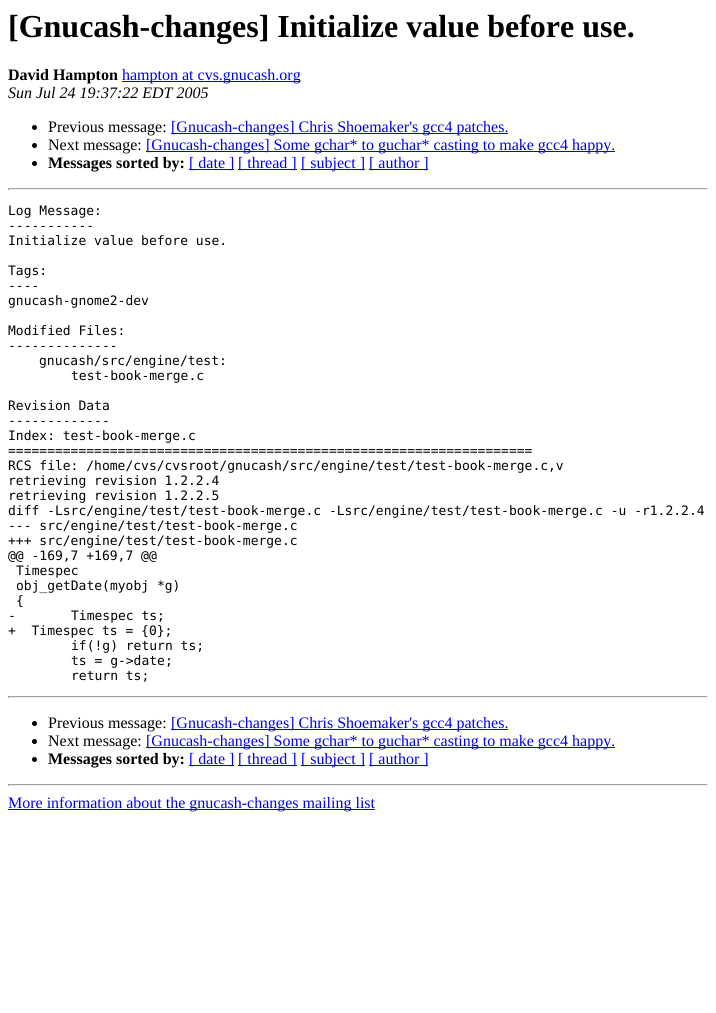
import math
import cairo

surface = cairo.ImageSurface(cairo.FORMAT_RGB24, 716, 1013)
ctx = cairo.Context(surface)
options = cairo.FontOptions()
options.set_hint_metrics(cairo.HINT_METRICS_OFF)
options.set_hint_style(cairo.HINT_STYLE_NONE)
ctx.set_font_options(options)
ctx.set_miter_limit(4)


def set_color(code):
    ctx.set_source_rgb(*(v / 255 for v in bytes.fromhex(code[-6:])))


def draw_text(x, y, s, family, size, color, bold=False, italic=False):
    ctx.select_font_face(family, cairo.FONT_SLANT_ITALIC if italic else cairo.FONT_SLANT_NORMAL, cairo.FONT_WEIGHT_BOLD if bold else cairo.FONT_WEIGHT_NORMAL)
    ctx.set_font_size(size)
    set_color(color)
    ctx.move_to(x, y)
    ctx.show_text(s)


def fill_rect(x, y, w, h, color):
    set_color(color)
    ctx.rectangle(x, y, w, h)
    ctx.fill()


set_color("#ffffff")
ctx.paint()
draw_text(8, 37, "[Gnucash-changes] Initialize value before use.", "Liberation Serif", 32, "#000000", bold=True)
draw_text(8, 80, "David Hampton", "Liberation Serif", 16, "#000000", bold=True)
fill_rect(122, 81, 178, 1, "#0000ee")
draw_text(122, 80, "hampton at cvs.gnucash.org", "Liberation Serif", 16, "#0000ee")
draw_text(8, 98, "Sun Jul 24 19:37:22 EDT 2005", "Liberation Serif", 16, "#000000", italic=True)
ctx.new_path()
ctx.arc(34.5, 127.5, 2.5, 0, 2 * math.pi)
ctx.fill()
draw_text(48, 132, "Previous message:", "Liberation Serif", 16, "#000000")
fill_rect(171, 133, 337, 1, "#0000ee")
draw_text(171, 132, "[Gnucash-changes] Chris Shoemaker's gcc4 patches.", "Liberation Serif", 16, "#0000ee")
set_color("#000000")
ctx.new_path()
ctx.arc(34.5, 145.5, 2.5, 0, 2 * math.pi)
ctx.fill()
draw_text(48, 150, "Next message:", "Liberation Serif", 16, "#000000")
fill_rect(146, 151, 469, 1, "#0000ee")
draw_text(146, 150, "[Gnucash-changes] Some gchar* to guchar* casting to make gcc4 happy.", "Liberation Serif", 16, "#0000ee")
set_color("#000000")
ctx.new_path()
ctx.arc(34.5, 163.5, 2.5, 0, 2 * math.pi)
ctx.fill()
draw_text(48, 168, "Messages sorted by:", "Liberation Serif", 16, "#000000", bold=True)
fill_rect(189, 169, 45, 1, "#0000ee")
draw_text(189, 168, "[ date ]", "Liberation Serif", 16, "#0000ee")
fill_rect(238, 169, 59, 1, "#0000ee")
draw_text(238, 168, "[ thread ]", "Liberation Serif", 16, "#0000ee")
fill_rect(301, 169, 64, 1, "#0000ee")
draw_text(301, 168, "[ subject ]", "Liberation Serif", 16, "#0000ee")
fill_rect(369, 169, 59, 1, "#0000ee")
draw_text(369, 168, "[ author ]", "Liberation Serif", 16, "#0000ee")
fill_rect(8, 188, 700, 1, "#9f9f9f")
fill_rect(707, 188, 1, 2, "#eeeeee")
fill_rect(8, 189, 700, 1, "#eeeeee")
fill_rect(8, 188, 1, 2, "#9f9f9f")
draw_text(8, 215, "Log Message:", "DejaVu Sans Mono", 13, "#000000")
draw_text(8, 230, "-----------", "DejaVu Sans Mono", 13, "#000000")
draw_text(8, 245, "Initialize value before use.", "DejaVu Sans Mono", 13, "#000000")
draw_text(8, 275, "Tags:", "DejaVu Sans Mono", 13, "#000000")
draw_text(8, 290, "----", "DejaVu Sans Mono", 13, "#000000")
draw_text(8, 305, "gnucash-gnome2-dev", "DejaVu Sans Mono", 13, "#000000")
draw_text(8, 335, "Modified Files:", "DejaVu Sans Mono", 13, "#000000")
draw_text(8, 350, "--------------", "DejaVu Sans Mono", 13, "#000000")
draw_text(39, 365, "gnucash/src/engine/test:", "DejaVu Sans Mono", 13, "#000000")
draw_text(71, 380, "test-book-merge.c", "DejaVu Sans Mono", 13, "#000000")
draw_text(8, 410, "Revision Data", "DejaVu Sans Mono", 13, "#000000")
draw_text(8, 425, "-------------", "DejaVu Sans Mono", 13, "#000000")
draw_text(8, 440, "Index: test-book-merge.c", "DejaVu Sans Mono", 13, "#000000")
draw_text(8, 455, "===================================================================", "DejaVu Sans Mono", 13, "#000000")
draw_text(8, 470, "RCS file: /home/cvs/cvsroot/gnucash/src/engine/test/test-book-merge.c,v", "DejaVu Sans Mono", 13, "#000000")
draw_text(8, 485, "retrieving revision 1.2.2.4", "DejaVu Sans Mono", 13, "#000000")
draw_text(8, 500, "retrieving revision 1.2.2.5", "DejaVu Sans Mono", 13, "#000000")
draw_text(8, 515, "diff -Lsrc/engine/test/test-book-merge.c -Lsrc/engine/test/test-book-merge.c -u -r1.2.2.4", "DejaVu Sans Mono", 13, "#000000")
draw_text(8, 530, "--- src/engine/test/test-book-merge.c", "DejaVu Sans Mono", 13, "#000000")
draw_text(8, 545, "+++ src/engine/test/test-book-merge.c", "DejaVu Sans Mono", 13, "#000000")
draw_text(8, 560, "@@ -169,7 +169,7 @@", "DejaVu Sans Mono", 13, "#000000")
draw_text(16, 575, "Timespec", "DejaVu Sans Mono", 13, "#000000")
draw_text(16, 590, "obj_getDate(myobj *g)", "DejaVu Sans Mono", 13, "#000000")
draw_text(16, 605, "{", "DejaVu Sans Mono", 13, "#000000")
draw_text(8, 620, "-", "DejaVu Sans Mono", 13, "#000000")
draw_text(71, 620, "Timespec ts;", "DejaVu Sans Mono", 13, "#000000")
draw_text(8, 635, "+  Timespec ts = {0};", "DejaVu Sans Mono", 13, "#000000")
draw_text(71, 650, "if(!g) return ts;", "DejaVu Sans Mono", 13, "#000000")
draw_text(71, 665, "ts = g->date;", "DejaVu Sans Mono", 13, "#000000")
draw_text(71, 680, "return ts;", "DejaVu Sans Mono", 13, "#000000")
fill_rect(8, 696, 700, 1, "#9f9f9f")
fill_rect(707, 696, 1, 2, "#eeeeee")
fill_rect(8, 697, 700, 1, "#eeeeee")
fill_rect(8, 696, 1, 2, "#9f9f9f")
set_color("#000000")
ctx.new_path()
ctx.arc(34.5, 723.5, 2.5, 0, 2 * math.pi)
ctx.fill()
draw_text(48, 728, "Previous message:", "Liberation Serif", 16, "#000000")
fill_rect(171, 729, 337, 1, "#0000ee")
draw_text(171, 728, "[Gnucash-changes] Chris Shoemaker's gcc4 patches.", "Liberation Serif", 16, "#0000ee")
set_color("#000000")
ctx.new_path()
ctx.arc(34.5, 741.5, 2.5, 0, 2 * math.pi)
ctx.fill()
draw_text(48, 746, "Next message:", "Liberation Serif", 16, "#000000")
fill_rect(146, 747, 469, 1, "#0000ee")
draw_text(146, 746, "[Gnucash-changes] Some gchar* to guchar* casting to make gcc4 happy.", "Liberation Serif", 16, "#0000ee")
set_color("#000000")
ctx.new_path()
ctx.arc(34.5, 759.5, 2.5, 0, 2 * math.pi)
ctx.fill()
draw_text(48, 764, "Messages sorted by:", "Liberation Serif", 16, "#000000", bold=True)
fill_rect(189, 765, 45, 1, "#0000ee")
draw_text(189, 764, "[ date ]", "Liberation Serif", 16, "#0000ee")
fill_rect(238, 765, 59, 1, "#0000ee")
draw_text(238, 764, "[ thread ]", "Liberation Serif", 16, "#0000ee")
fill_rect(301, 765, 64, 1, "#0000ee")
draw_text(301, 764, "[ subject ]", "Liberation Serif", 16, "#0000ee")
fill_rect(369, 765, 59, 1, "#0000ee")
draw_text(369, 764, "[ author ]", "Liberation Serif", 16, "#0000ee")
fill_rect(8, 784, 700, 1, "#9f9f9f")
fill_rect(707, 784, 1, 2, "#eeeeee")
fill_rect(8, 785, 700, 1, "#eeeeee")
fill_rect(8, 784, 1, 2, "#9f9f9f")
fill_rect(8, 809, 367, 1, "#0000ee")
draw_text(8, 808, "More information about the gnucash-changes mailing list", "Liberation Serif", 16, "#0000ee")
surface.write_to_png("output.png")
